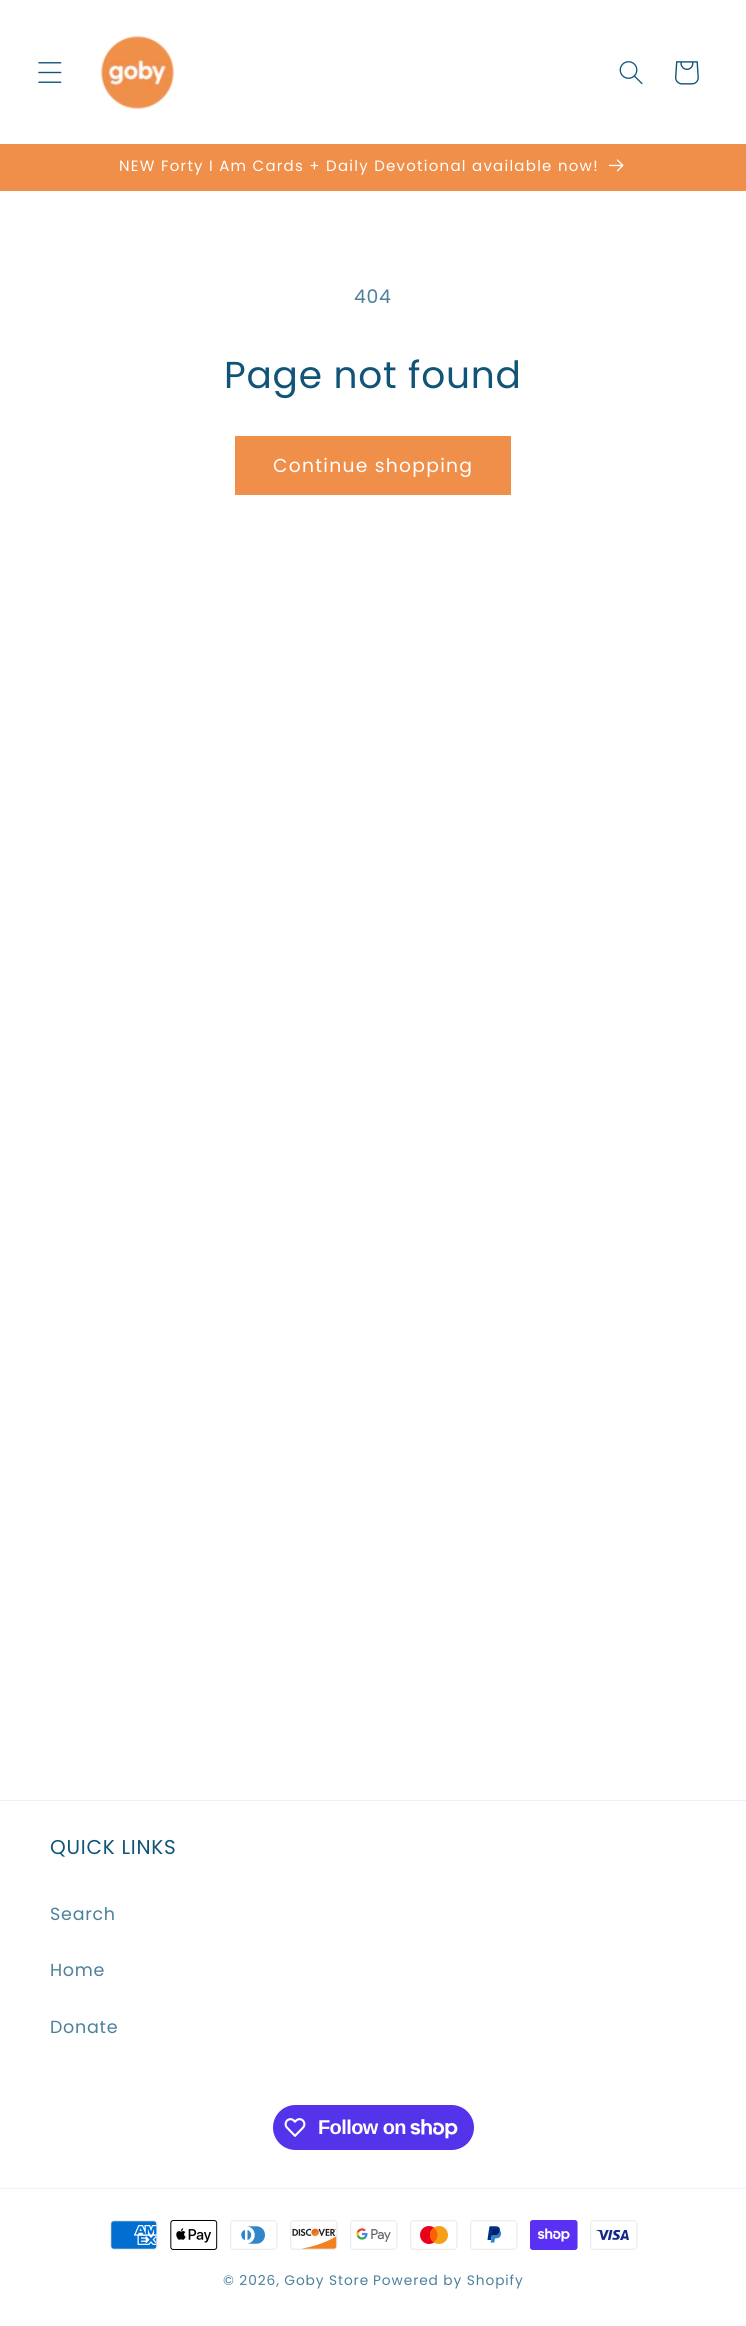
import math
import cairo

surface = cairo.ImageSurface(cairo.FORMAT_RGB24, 746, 2326)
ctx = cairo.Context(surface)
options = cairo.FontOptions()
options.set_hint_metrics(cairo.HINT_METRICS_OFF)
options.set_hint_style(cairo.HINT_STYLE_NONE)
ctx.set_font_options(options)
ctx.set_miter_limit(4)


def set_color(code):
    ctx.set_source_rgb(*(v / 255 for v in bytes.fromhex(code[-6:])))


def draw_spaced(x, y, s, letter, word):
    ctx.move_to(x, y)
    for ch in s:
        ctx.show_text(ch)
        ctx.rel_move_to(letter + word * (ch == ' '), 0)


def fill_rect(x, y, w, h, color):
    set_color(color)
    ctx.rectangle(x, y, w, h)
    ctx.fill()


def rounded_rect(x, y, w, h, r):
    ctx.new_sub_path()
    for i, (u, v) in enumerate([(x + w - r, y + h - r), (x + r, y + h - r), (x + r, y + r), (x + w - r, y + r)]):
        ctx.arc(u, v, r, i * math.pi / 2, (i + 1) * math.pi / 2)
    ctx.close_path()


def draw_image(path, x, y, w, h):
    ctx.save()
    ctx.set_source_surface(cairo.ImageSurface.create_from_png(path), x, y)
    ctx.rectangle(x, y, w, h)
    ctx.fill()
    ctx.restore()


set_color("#ffffff")
ctx.paint()
draw_image("assets/img1.png", 38, 62, 24, 21)
draw_image("assets/img2.png", 101, 36, 73, 73)
draw_image("assets/img3.png", 619, 61, 24, 24)
draw_image("assets/img4.png", 675, 61, 24, 24)
fill_rect(0, 144, 746, 47, "#ef8f4a")
ctx.select_font_face("Poppins")
ctx.set_font_size(15)
set_color("#ffffff")
draw_spaced(119, 171, "NEW Forty I Am Cards + Daily Devotional available now!", 1.25, 0)
draw_image("assets/img5.png", 609, 159, 15, 13)
ctx.set_font_size(18.75)
set_color("#4c809a")
draw_spaced(354, 303, "404", 0.75, 0)
ctx.set_font_size(37.5)
set_color("#105578")
draw_spaced(224, 388, "Page not found", 0.75, 0)
fill_rect(235, 436, 276, 59, "#ef8f4a")
ctx.set_font_size(18.75)
set_color("#ffffff")
draw_spaced(273, 472, "Continue shopping", 1.25, 0)
fill_rect(0, 1800, 746, 1, "#ecf1f4")
ctx.set_font_size(20)
set_color("#105578")
draw_spaced(50, 1854, "QUICK LINKS", 0.75, 0)
ctx.set_font_size(17.5)
set_color("#4c809a")
draw_spaced(50, 1920, "Search", 0.75, 0)
draw_spaced(50, 1976, "Home", 0.75, 0)
draw_spaced(50, 2033, "Donate", 0.75, 0)
set_color("#5433eb")
rounded_rect(273, 2105, 201, 45, 22.5)
ctx.fill()
draw_image("assets/img6.png", 284, 2118, 22, 19)
ctx.select_font_face("Liberation Sans", cairo.FONT_SLANT_NORMAL, cairo.FONT_WEIGHT_BOLD)
ctx.set_font_size(20)
set_color("#ffffff")
draw_spaced(318, 2134, "Follow on", -0.6, 0)
draw_image("assets/img7.png", 410, 2119, 48, 20)
fill_rect(0, 2188, 746, 1, "#ecf1f4")
draw_image("assets/img8.png", 110, 2220, 48, 30)
draw_image("assets/img9.png", 170, 2220, 48, 30)
draw_image("assets/img10.png", 230, 2220, 48, 30)
draw_image("assets/img11.png", 290, 2220, 48, 30)
draw_image("assets/img12.png", 350, 2220, 48, 30)
draw_image("assets/img13.png", 410, 2220, 48, 30)
draw_image("assets/img14.png", 470, 2220, 48, 30)
draw_image("assets/img15.png", 530, 2220, 48, 30)
draw_image("assets/img16.png", 590, 2220, 48, 30)
ctx.select_font_face("Poppins")
ctx.set_font_size(13.75)
set_color("#4c809a")
draw_spaced(223, 2285, "© 2026, Goby Store", 0.9, 0)
draw_spaced(373, 2285, "Powered by Shopify", 0.9, 0)
surface.write_to_png("output.png")
